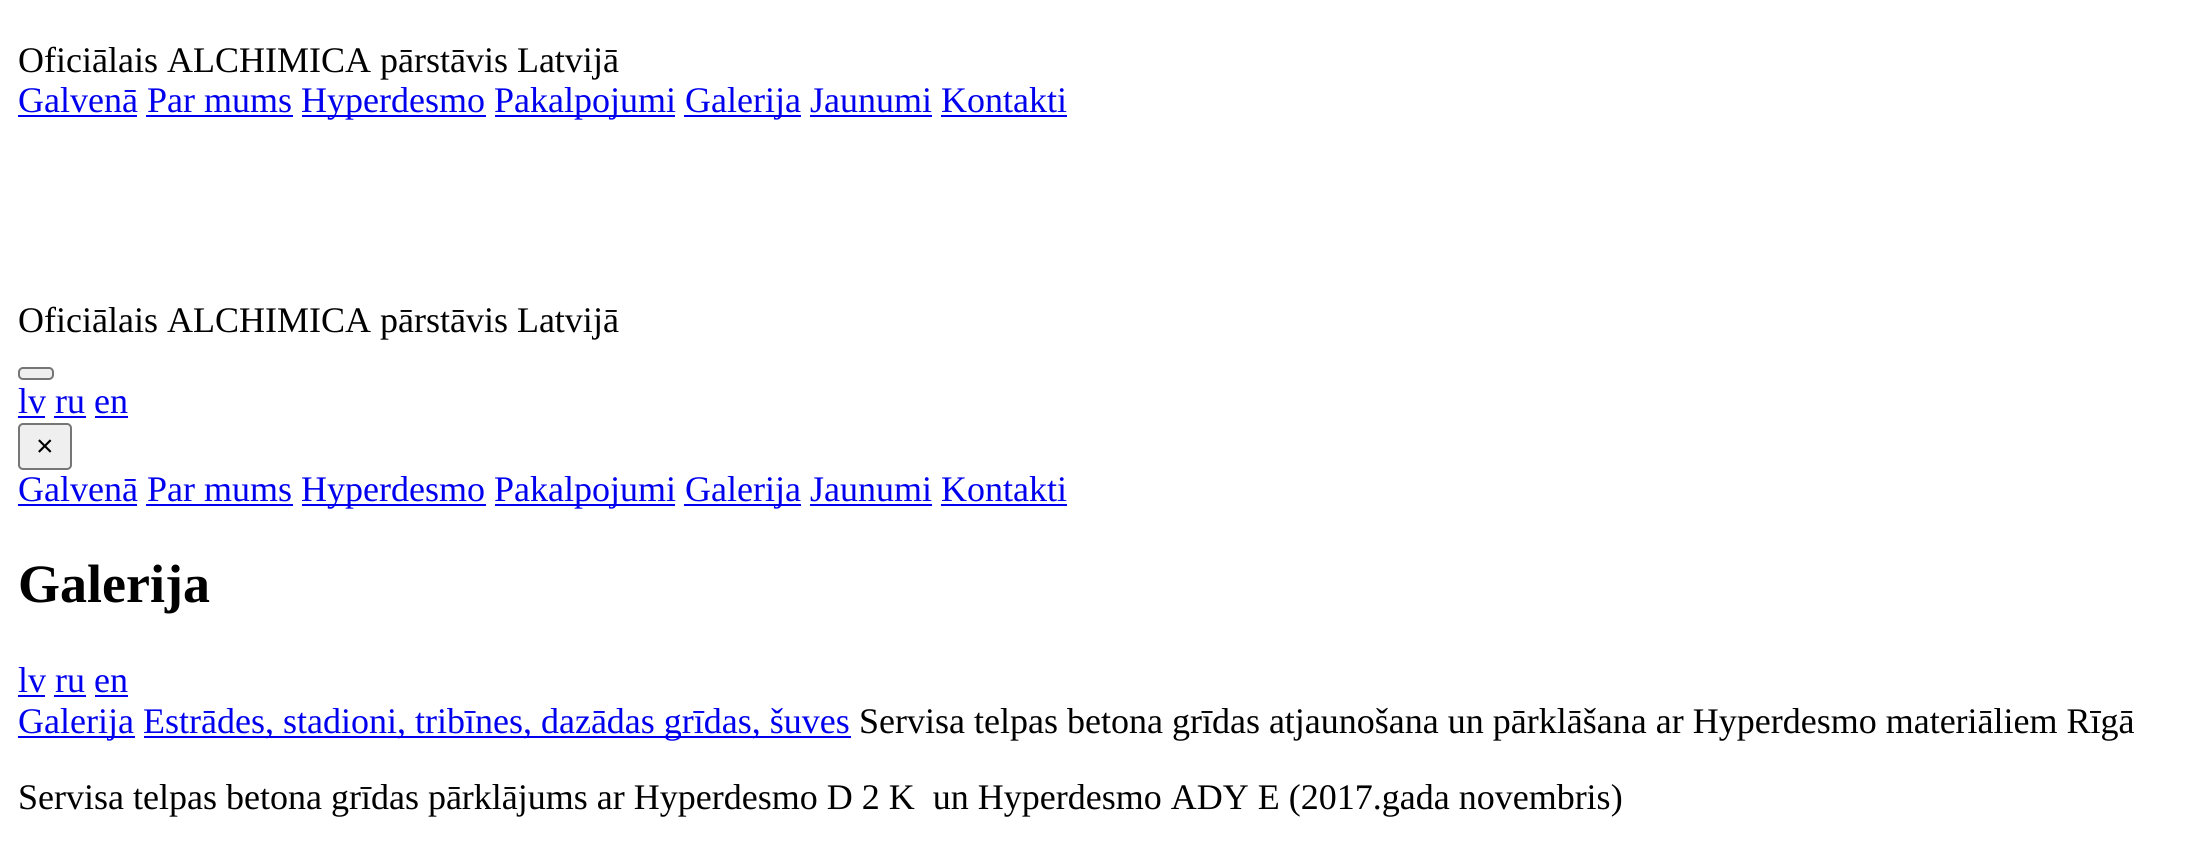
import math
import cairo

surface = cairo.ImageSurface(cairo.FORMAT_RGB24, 2207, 862)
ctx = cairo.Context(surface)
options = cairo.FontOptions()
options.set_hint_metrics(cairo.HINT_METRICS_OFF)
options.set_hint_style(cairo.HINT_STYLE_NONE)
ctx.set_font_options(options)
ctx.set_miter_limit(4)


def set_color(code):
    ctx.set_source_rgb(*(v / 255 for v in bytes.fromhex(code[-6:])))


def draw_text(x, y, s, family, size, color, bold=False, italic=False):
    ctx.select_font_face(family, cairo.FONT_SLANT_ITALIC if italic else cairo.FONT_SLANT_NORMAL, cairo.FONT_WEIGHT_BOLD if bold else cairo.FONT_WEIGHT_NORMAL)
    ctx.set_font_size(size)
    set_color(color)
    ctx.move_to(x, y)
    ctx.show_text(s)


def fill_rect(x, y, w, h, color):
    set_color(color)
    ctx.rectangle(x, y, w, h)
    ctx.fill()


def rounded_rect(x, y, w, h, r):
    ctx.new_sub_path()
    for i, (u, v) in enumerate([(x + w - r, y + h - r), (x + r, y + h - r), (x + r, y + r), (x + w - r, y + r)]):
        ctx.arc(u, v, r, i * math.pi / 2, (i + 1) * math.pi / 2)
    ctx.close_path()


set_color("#ffffff")
ctx.paint()
draw_text(18, 72, "Oficiālais ALCHIMICA pārstāvis Latvijā", "Liberation Serif", 36, "#000000")
draw_text(18, 112, "Galvenā Par mums", "Liberation Serif", 36, "#0000ee")
fill_rect(18, 115, 119, 2, "#0000ee")
fill_rect(302, 115, 184, 2, "#0000ee")
draw_text(301, 112, "Hyperdesmo", "Liberation Serif", 36, "#0000ee")
fill_rect(495, 115, 180, 2, "#0000ee")
draw_text(494, 112, "Pakalpojumi", "Liberation Serif", 36, "#0000ee")
fill_rect(684, 115, 117, 2, "#0000ee")
draw_text(685, 112, "Galerija Jaunumi Kontakti", "Liberation Serif", 36, "#0000ee")
fill_rect(146, 115, 147, 2, "#0000ee")
fill_rect(810, 115, 122, 2, "#0000ee")
fill_rect(941, 115, 126, 2, "#0000ee")
draw_text(18, 332, "Oficiālais ALCHIMICA pārstāvis Latvijā", "Liberation Serif", 36, "#000000")
set_color("#efefef")
rounded_rect(19, 368, 34, 11, 4)
ctx.fill_preserve()
set_color("#767676")
ctx.stroke()
draw_text(18, 413, "lv ru en", "Liberation Serif", 36, "#0000ee")
fill_rect(18, 416, 27, 2, "#0000ee")
fill_rect(54, 416, 32, 2, "#0000ee")
fill_rect(95, 416, 33, 2, "#0000ee")
set_color("#efefef")
rounded_rect(19, 424, 52, 45, 4)
ctx.fill_preserve()
set_color("#767676")
ctx.stroke()
draw_text(36, 456, "×", "Liberation Sans", 30, "#000000")
draw_text(18, 501, "Galvenā Par mums", "Liberation Serif", 36, "#0000ee")
fill_rect(18, 504, 119, 2, "#0000ee")
fill_rect(302, 504, 184, 2, "#0000ee")
draw_text(301, 501, "Hyperdesmo", "Liberation Serif", 36, "#0000ee")
fill_rect(495, 504, 180, 2, "#0000ee")
draw_text(494, 501, "Pakalpojumi", "Liberation Serif", 36, "#0000ee")
fill_rect(684, 504, 117, 2, "#0000ee")
draw_text(685, 501, "Galerija Jaunumi Kontakti", "Liberation Serif", 36, "#0000ee")
fill_rect(146, 504, 147, 2, "#0000ee")
fill_rect(810, 504, 122, 2, "#0000ee")
fill_rect(941, 504, 126, 2, "#0000ee")
draw_text(18, 602, "Galerija", "Liberation Serif", 54, "#000000", bold=True)
draw_text(18, 692, "lv ru en", "Liberation Serif", 36, "#0000ee")
fill_rect(18, 695, 27, 2, "#0000ee")
fill_rect(54, 695, 32, 2, "#0000ee")
fill_rect(95, 695, 33, 2, "#0000ee")
fill_rect(18, 736, 117, 2, "#0000ee")
draw_text(18, 733, "Galerija", "Liberation Serif", 36, "#0000ee")
fill_rect(144, 736, 707, 2, "#0000ee")
draw_text(143, 733, "Estrādes, stadioni, tribīnes, dazādas grīdas, šuves", "Liberation Serif", 36, "#0000ee")
draw_text(859, 733, "Servisa telpas betona grīdas atjaunošana un pārklāšana ar Hyperdesmo materiāliem Rīgā", "Liberation Serif", 36, "#000000")
draw_text(18, 809, "Servisa telpas betona grīdas pārklājums ar Hyperdesmo D 2 K  un Hyperdesmo ADY E (2017.gada novembris)", "Liberation Serif", 36, "#000000")
surface.write_to_png("output.png")
